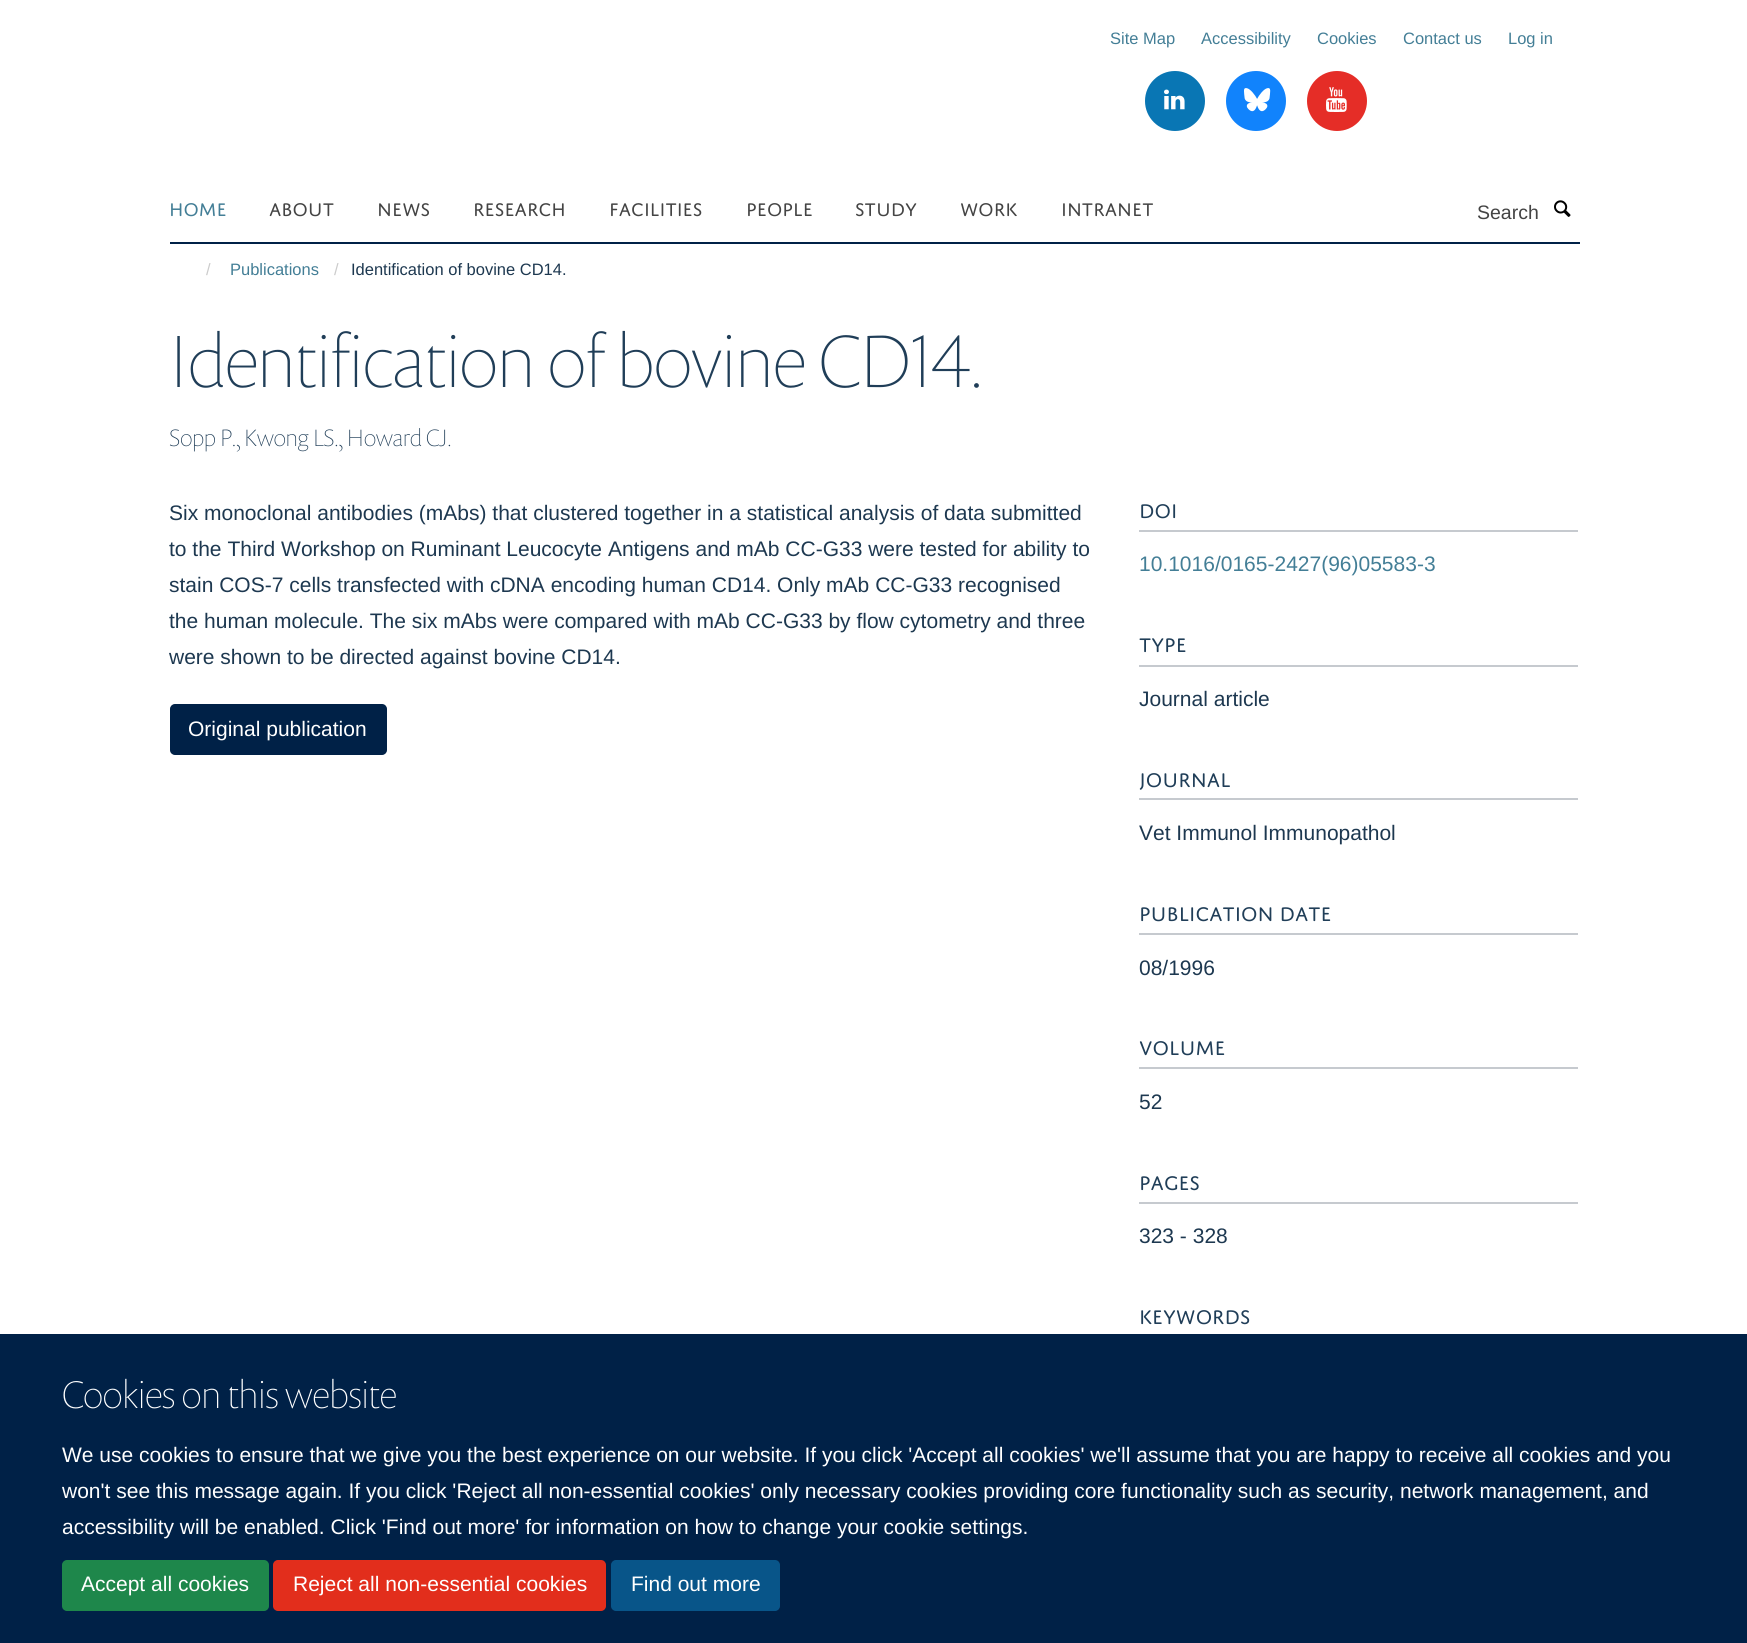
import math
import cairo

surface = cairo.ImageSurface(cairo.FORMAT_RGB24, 1747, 1643)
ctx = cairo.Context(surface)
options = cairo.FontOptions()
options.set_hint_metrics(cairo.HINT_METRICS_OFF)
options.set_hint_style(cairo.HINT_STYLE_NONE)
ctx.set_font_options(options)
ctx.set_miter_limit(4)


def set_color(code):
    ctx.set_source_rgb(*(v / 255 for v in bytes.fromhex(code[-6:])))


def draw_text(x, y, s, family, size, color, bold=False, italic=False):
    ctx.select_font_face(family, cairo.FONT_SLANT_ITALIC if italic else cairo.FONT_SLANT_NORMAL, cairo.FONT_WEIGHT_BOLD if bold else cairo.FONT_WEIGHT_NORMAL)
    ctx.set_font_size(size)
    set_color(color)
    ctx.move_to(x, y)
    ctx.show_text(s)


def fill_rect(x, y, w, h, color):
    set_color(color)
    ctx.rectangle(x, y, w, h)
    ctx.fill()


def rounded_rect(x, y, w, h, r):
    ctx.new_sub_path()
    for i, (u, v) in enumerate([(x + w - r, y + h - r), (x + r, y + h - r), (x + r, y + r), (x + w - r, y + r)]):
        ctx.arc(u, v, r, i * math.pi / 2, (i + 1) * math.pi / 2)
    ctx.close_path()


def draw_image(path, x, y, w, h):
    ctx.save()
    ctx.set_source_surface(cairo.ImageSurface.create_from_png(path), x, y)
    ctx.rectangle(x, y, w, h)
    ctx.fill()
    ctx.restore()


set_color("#ffffff")
ctx.paint()
draw_text(1110, 44, "Site Map", "Liberation Sans", 16.5, "#437e96")
draw_text(1201, 44, "Accessibility", "Liberation Sans", 16.5, "#437e96")
draw_text(1317, 44, "Cookies", "Liberation Sans", 16.5, "#437e96")
draw_text(1403, 44, "Contact us", "Liberation Sans", 16.5, "#437e96")
draw_text(1508, 44, "Log in", "Liberation Sans", 16.5, "#437e96")
set_color("#0976b4")
ctx.new_path()
ctx.arc(1175, 101, 30, 0, 2 * math.pi)
ctx.fill()
draw_image("assets/img1.png", 1164, 89, 21, 21)
set_color("#1183fc")
ctx.arc(1256, 101, 30, 0, 2 * math.pi)
ctx.fill()
draw_image("assets/img2.png", 1244, 88, 27, 24)
set_color("#e52d27")
ctx.arc(1337, 101, 30, 0, 2 * math.pi)
ctx.fill()
draw_image("assets/img3.png", 1326, 87, 21, 25)
fill_rect(170, 242, 1410, 2, "#002147")
draw_text(169, 216, "HOME", "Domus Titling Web", 19.5, "#437e96")
draw_text(269, 216, "ABOUT", "Domus Titling Web", 19.5, "#444444")
draw_text(377, 216, "NEWS", "Domus Titling Web", 19.5, "#444444")
draw_text(473, 216, "RESEARCH", "Domus Titling Web", 19.5, "#444444")
draw_text(609, 216, "FACILITIES", "Domus Titling Web", 19.5, "#444444")
draw_text(746, 216, "PEOPLE", "Domus Titling Web", 19.5, "#444444")
draw_text(855, 216, "STUDY", "Domus Titling Web", 19.5, "#444444")
draw_text(960, 216, "WORK", "Domus Titling Web", 19.5, "#444444")
draw_text(1061, 216, "INTRANET", "Domus Titling Web", 19.5, "#444444")
draw_text(1477, 219, "Search", "Liberation Sans", 19.5, "#444444")
draw_image("assets/img4.png", 1554, 200, 17, 17)
draw_text(206, 275, "/", "Liberation Sans", 16.5, "#cccccc")
draw_text(230, 275, "Publications", "Liberation Sans", 16.5, "#437e96")
draw_text(334, 275, "/", "Liberation Sans", 16.5, "#cccccc")
draw_text(351, 275, "Identification of bovine CD14.", "Liberation Sans", 16.5, "#1d3850")
draw_text(169, 387, "Identification of bovine CD14.", "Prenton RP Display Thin", 75, "#203e58")
draw_text(169, 446, "Sopp P., Kwong LS., Howard CJ.", "Prenton RP Display Thin", 24, "#203e58")
draw_text(169, 520, "Six monoclonal antibodies (mAbs) that clustered together in a statistical analysis of data submitted", "Liberation Sans", 21, "#1d3850")
draw_text(169, 556, "to the Third Workshop on Ruminant Leucocyte Antigens and mAb CC-G33 were tested for ability to", "Liberation Sans", 21, "#1d3850")
draw_text(169, 592, "stain COS-7 cells transfected with cDNA encoding human CD14. Only mAb CC-G33 recognised", "Liberation Sans", 21, "#1d3850")
draw_text(169, 628, "the human molecule. The six mAbs were compared with mAb CC-G33 by flow cytometry and three", "Liberation Sans", 21, "#1d3850")
draw_text(169, 664, "were shown to be directed against bovine CD14.", "Liberation Sans", 21, "#1d3850")
set_color("#002147")
rounded_rect(171, 705, 215, 49, 4)
ctx.fill_preserve()
ctx.stroke()
draw_text(188, 736, "Original publication", "Liberation Sans", 21, "#ffffff")
fill_rect(1139, 530, 439, 2, "#c6cacf")
draw_text(1139, 518, "DOI", "Domus Titling Web", 21, "#203e58")
draw_text(1139, 571, "10.1016/0165-2427(96)05583-3", "Liberation Sans", 21, "#437e96")
fill_rect(1139, 665, 439, 2, "#c6cacf")
draw_text(1139, 652, "TYPE", "Domus Titling Web", 21, "#203e58")
draw_text(1139, 706, "Journal article", "Liberation Sans", 21, "#1d3850")
fill_rect(1139, 798, 439, 2, "#c6cacf")
draw_text(1139, 787, "JOURNAL", "Domus Titling Web", 21, "#203e58")
draw_text(1139, 840, "Vet Immunol Immunopathol", "Liberation Sans", 21, "#1d3850")
fill_rect(1139, 933, 439, 2, "#c6cacf")
draw_text(1139, 921, "PUBLICATION DATE", "Domus Titling Web", 21, "#203e58")
draw_text(1139, 975, "08/1996", "Liberation Sans", 21, "#1d3850")
fill_rect(1139, 1067, 439, 2, "#c6cacf")
draw_text(1139, 1055, "VOLUME", "Domus Titling Web", 21, "#203e58")
draw_text(1139, 1109, "52", "Liberation Sans", 21, "#1d3850")
fill_rect(1139, 1202, 439, 2, "#c6cacf")
draw_text(1139, 1190, "PAGES", "Domus Titling Web", 21, "#203e58")
draw_text(1139, 1243, "323 - 328", "Liberation Sans", 21, "#1d3850")
draw_text(1139, 1324, "KEYWORDS", "Domus Titling Web", 21, "#203e58")
fill_rect(0, 1334, 1747, 309, "#002147")
draw_text(62, 1408, "Cookies on this website", "Prenton RP Display Thin", 39, "#ffffff")
draw_text(62, 1462, "We use cookies to ensure that we give you the best experience on our website. If you click 'Accept all cookies' we'll assume that you are happy to receive all cookies and you", "Liberation Sans", 21, "#ffffff")
draw_text(62, 1498, "won't see this message again. If you click 'Reject all non-essential cookies' only necessary cookies providing core functionality such as security, network management, and", "Liberation Sans", 21, "#ffffff")
draw_text(62, 1534, "accessibility will be enabled. Click 'Find out more' for information on how to change your cookie settings.", "Liberation Sans", 21, "#ffffff")
set_color("#1e874b")
rounded_rect(63, 1561, 205, 49, 4)
ctx.fill_preserve()
ctx.stroke()
draw_text(81, 1591, "Accept all cookies", "Liberation Sans", 21, "#ffffff")
set_color("#e22e1c")
rounded_rect(274, 1561, 331, 49, 4)
ctx.fill_preserve()
ctx.stroke()
draw_text(293, 1591, "Reject all non-essential cookies", "Liberation Sans", 21, "#ffffff")
set_color("#085589")
rounded_rect(612, 1561, 167, 49, 4)
ctx.fill_preserve()
ctx.stroke()
draw_text(631, 1591, "Find out more", "Liberation Sans", 21, "#ffffff")
surface.write_to_png("output.png")
